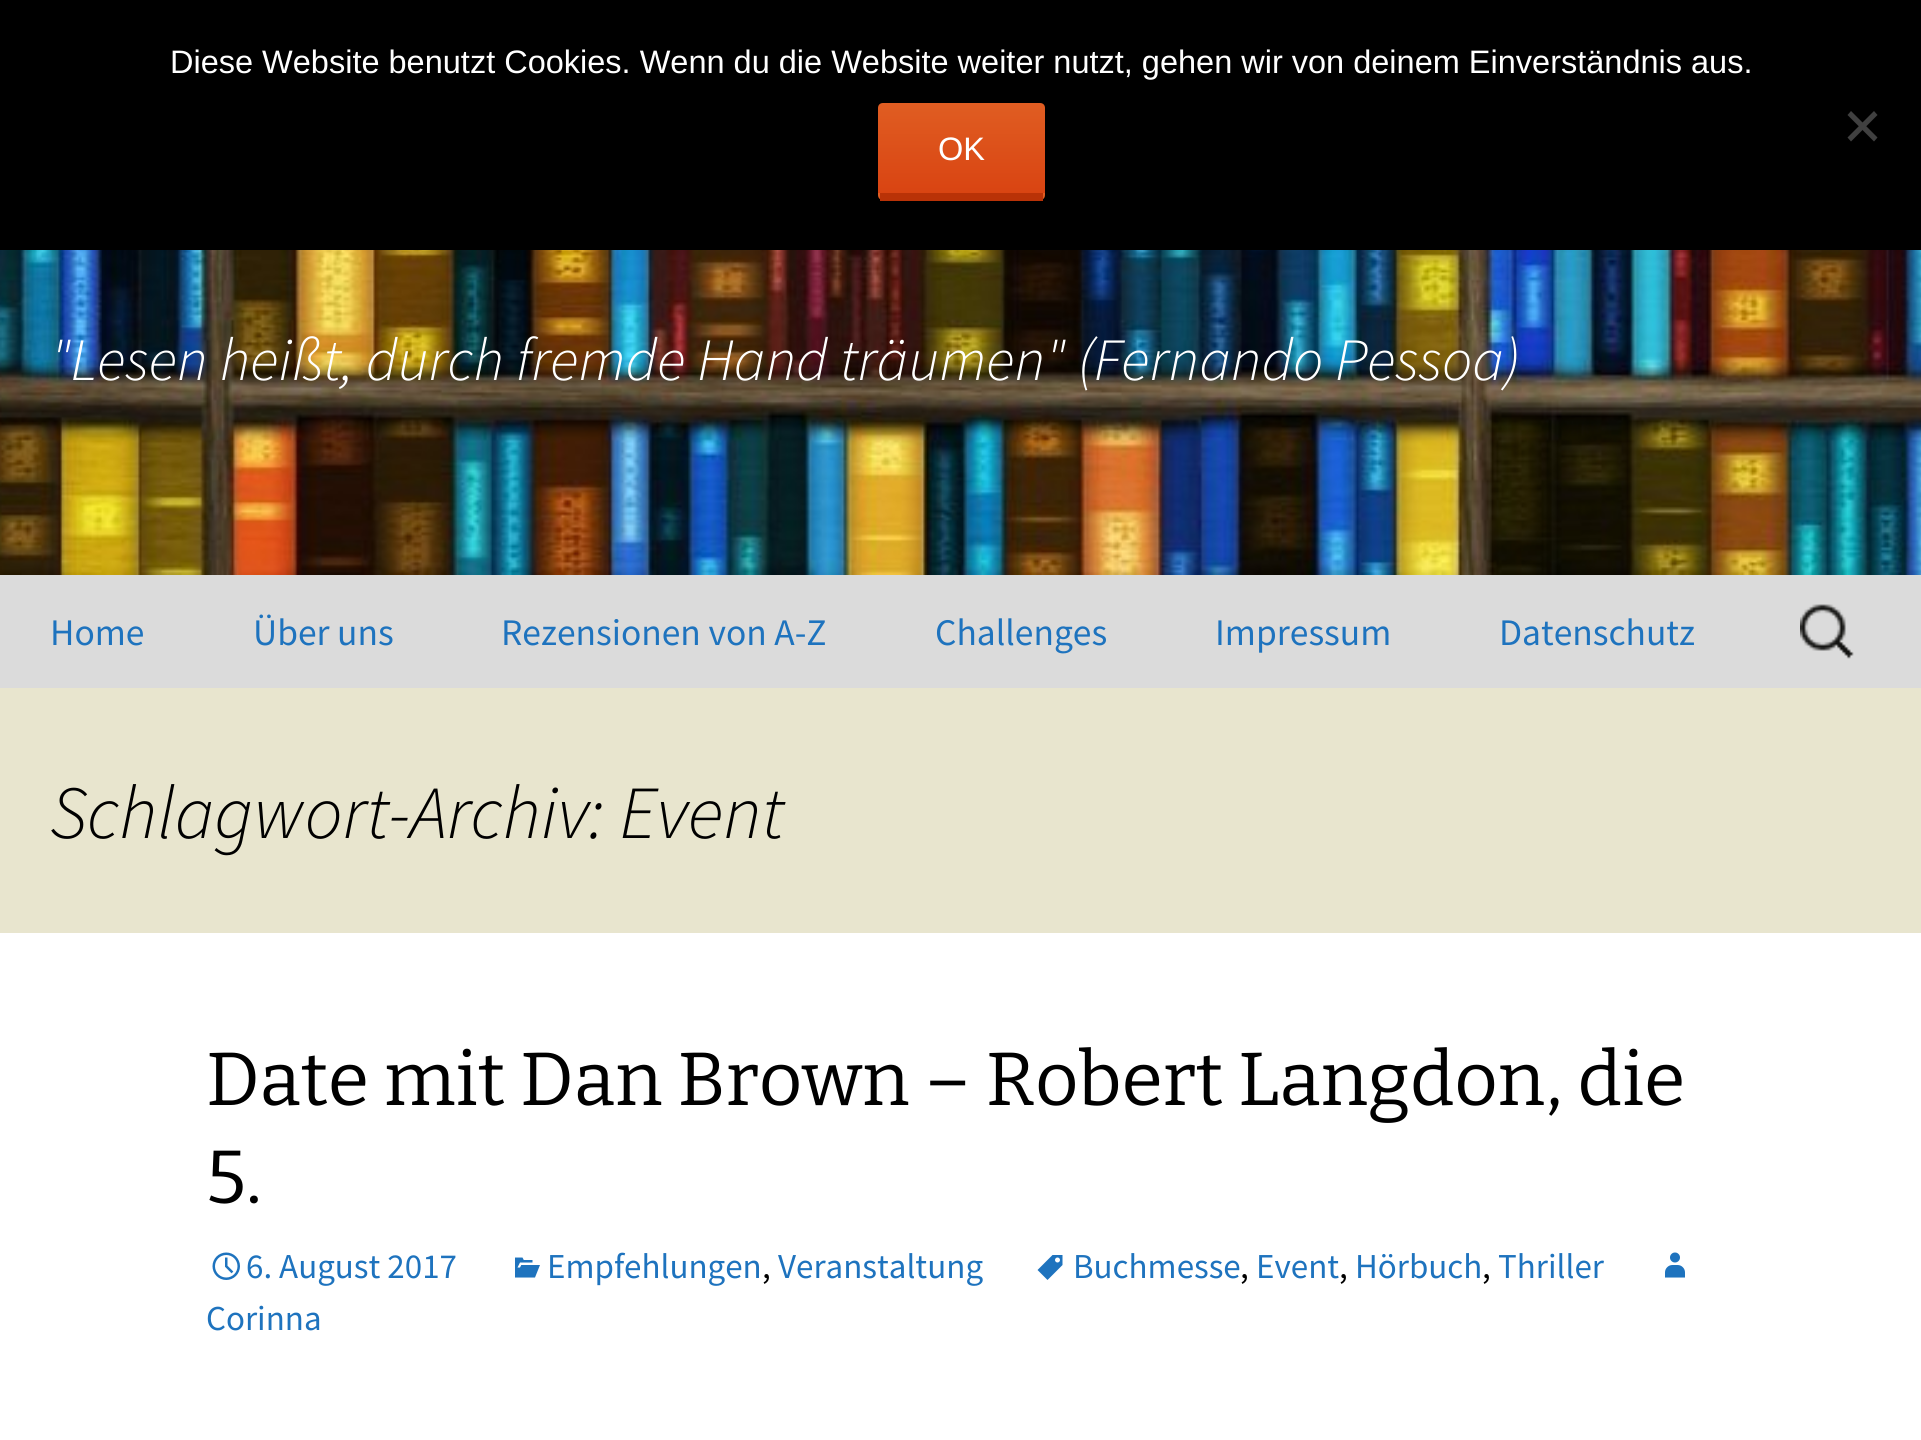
import math
import cairo

surface = cairo.ImageSurface(cairo.FORMAT_RGB24, 1921, 1440)
ctx = cairo.Context(surface)
options = cairo.FontOptions()
options.set_hint_metrics(cairo.HINT_METRICS_OFF)
options.set_hint_style(cairo.HINT_STYLE_NONE)
ctx.set_font_options(options)
ctx.set_miter_limit(4)


def set_color(code):
    ctx.set_source_rgb(*(v / 255 for v in bytes.fromhex(code[-6:])))


def draw_text(x, y, s, family, size, color, bold=False, italic=False):
    ctx.select_font_face(family, cairo.FONT_SLANT_ITALIC if italic else cairo.FONT_SLANT_NORMAL, cairo.FONT_WEIGHT_BOLD if bold else cairo.FONT_WEIGHT_NORMAL)
    ctx.set_font_size(size)
    set_color(color)
    ctx.move_to(x, y)
    ctx.show_text(s)


def fill_rect(x, y, w, h, color):
    set_color(color)
    ctx.rectangle(x, y, w, h)
    ctx.fill()


def draw_image(path, x, y, w, h):
    ctx.save()
    ctx.set_source_surface(cairo.ImageSurface.create_from_png(path), x, y)
    ctx.rectangle(x, y, w, h)
    ctx.fill()
    ctx.restore()


set_color("#ffffff")
ctx.paint()
fill_rect(0, 0, 1921, 250, "#000000")
draw_text(170, 73, "Diese Website benutzt Cookies. Wenn du die Website weiter nutzt, gehen wir von deinem Einverständnis aus.", "Liberation Sans", 32.5, "#ffffff")
set_color("#404040")
ctx.new_path()
ctx.move_to(1874, 111)
ctx.line_to(1877.5, 115)
ctx.line_to(1851, 141.5)
ctx.line_to(1847.5, 137.5)
ctx.close_path()
ctx.fill()
ctx.new_path()
ctx.move_to(1847.5, 115)
ctx.line_to(1851, 111)
ctx.line_to(1877.5, 137.5)
ctx.line_to(1874, 141.5)
ctx.close_path()
ctx.fill()
gradient = cairo.LinearGradient(961, 103, 961, 193)
gradient.add_color_stop_rgba(0, 0.878, 0.365, 0.133, 1)
gradient.add_color_stop_rgba(1, 0.851, 0.267, 0.071, 1)
ctx.set_source(gradient)
ctx.new_path()
ctx.move_to(883, 103)
ctx.line_to(1040, 103)
ctx.curve_to(1043, 103, 1045, 105, 1045, 108)
ctx.line_to(1045, 193)
ctx.line_to(878, 193)
ctx.line_to(878, 108)
ctx.curve_to(878, 105, 880, 103, 883, 103)
ctx.close_path()
ctx.fill()
gradient = cairo.LinearGradient(961, 193, 961, 283)
gradient.add_color_stop_rgba(0, 0.878, 0.365, 0.133, 1)
gradient.add_color_stop_rgba(1, 0.851, 0.267, 0.071, 1)
ctx.set_source(gradient)
ctx.new_path()
ctx.move_to(878, 193)
ctx.line_to(1045, 193)
ctx.line_to(1045, 195)
ctx.curve_to(1045, 198, 1043, 200, 1040, 200)
ctx.line_to(883, 200)
ctx.curve_to(880, 200, 878, 198, 878, 195)
ctx.close_path()
ctx.fill()
fill_rect(880, 193, 163, 8, "#b93207")
draw_text(938, 160, "OK", "Liberation Sans", 32.5, "#ffffff")
draw_image("assets/img1.png", 0, 250, 1921, 325)
draw_text(50, 380, "\"Lesen heißt, durch fremde Hand träumen\" (Fernando Pessoa)", "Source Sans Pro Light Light", 60, "#ffffff", italic=True)
fill_rect(0, 575, 1921, 113, "#dbdbdb")
draw_text(50, 645, "Home", "Source Sans Pro", 37.5, "#1e73be")
draw_text(253, 645, "Über uns", "Source Sans Pro", 37.5, "#1e73be")
draw_text(501, 645, "Rezensionen von A-Z", "Source Sans Pro", 37.5, "#1e73be")
draw_text(935, 645, "Challenges", "Source Sans Pro", 37.5, "#1e73be")
draw_text(1215, 645, "Impressum", "Source Sans Pro", 37.5, "#1e73be")
draw_text(1499, 645, "Datenschutz", "Source Sans Pro", 37.5, "#1e73be")
draw_image("assets/img2.png", 1800, 604, 54, 55)
fill_rect(0, 688, 1921, 245, "#e8e5ce")
draw_text(50, 838, "Schlagwort-Archiv: Event", "Source Sans Pro Light Light", 75, "#000000", italic=True)
draw_text(206, 1105, "Date mit Dan Brown – Robert Langdon, die", "Bitter Thin", 75, "#000000")
draw_text(206, 1203, "5.", "Bitter Thin", 75, "#000000")
draw_image("assets/img3.png", 212, 1252, 28, 28)
draw_text(246, 1278, "6. August 2017", "Source Sans Pro", 35, "#1e73be")
draw_image("assets/img4.png", 515, 1257, 25, 21)
draw_text(547, 1278, "Empfehlungen", "Source Sans Pro", 35, "#1e73be")
draw_text(762, 1278, ",", "Source Sans Pro", 35, "#000000")
draw_text(778, 1278, "Veranstaltung", "Source Sans Pro", 35, "#1e73be")
draw_image("assets/img5.png", 1037, 1255, 26, 25)
draw_text(1073, 1278, "Buchmesse", "Source Sans Pro", 35, "#1e73be")
draw_text(1240, 1278, ",", "Source Sans Pro", 35, "#000000")
draw_text(1256, 1278, "Event", "Source Sans Pro", 35, "#1e73be")
draw_text(1339, 1278, ",", "Source Sans Pro", 35, "#000000")
draw_text(1355, 1278, "Hörbuch", "Source Sans Pro", 35, "#1e73be")
draw_text(1482, 1278, ",", "Source Sans Pro", 35, "#000000")
draw_text(1498, 1278, "Thriller", "Source Sans Pro", 35, "#1e73be")
draw_image("assets/img6.png", 1665, 1252, 20, 26)
draw_text(206, 1330, "Corinna", "Source Sans Pro", 35, "#1e73be")
surface.write_to_png("output.png")
